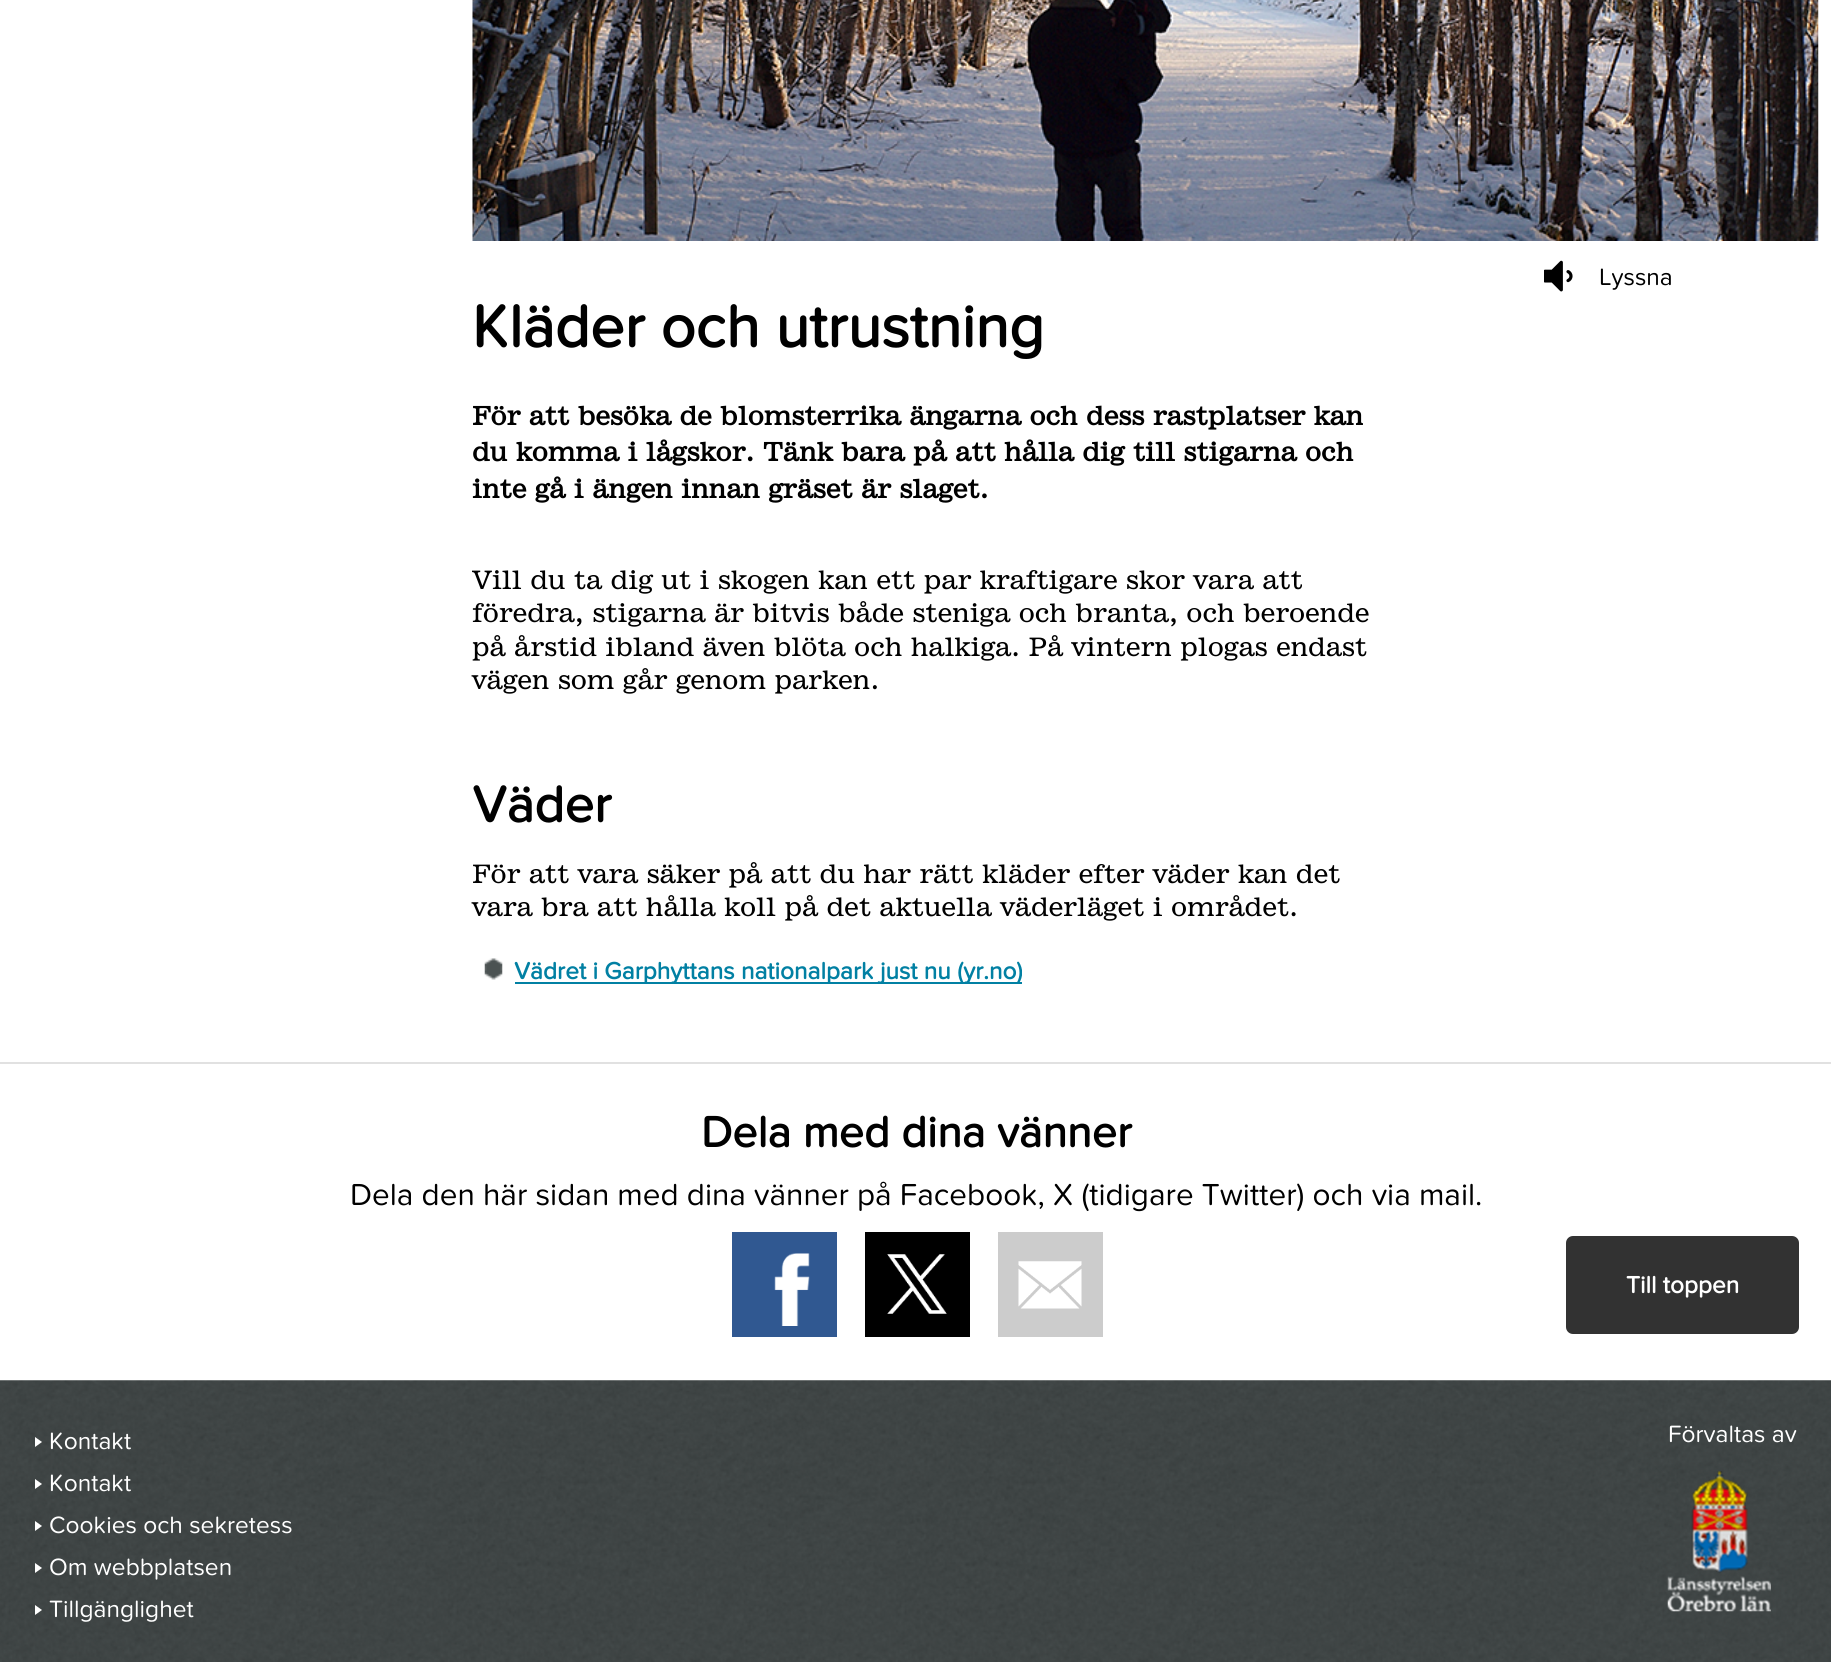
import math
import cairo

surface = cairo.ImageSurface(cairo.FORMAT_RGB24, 1831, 1662)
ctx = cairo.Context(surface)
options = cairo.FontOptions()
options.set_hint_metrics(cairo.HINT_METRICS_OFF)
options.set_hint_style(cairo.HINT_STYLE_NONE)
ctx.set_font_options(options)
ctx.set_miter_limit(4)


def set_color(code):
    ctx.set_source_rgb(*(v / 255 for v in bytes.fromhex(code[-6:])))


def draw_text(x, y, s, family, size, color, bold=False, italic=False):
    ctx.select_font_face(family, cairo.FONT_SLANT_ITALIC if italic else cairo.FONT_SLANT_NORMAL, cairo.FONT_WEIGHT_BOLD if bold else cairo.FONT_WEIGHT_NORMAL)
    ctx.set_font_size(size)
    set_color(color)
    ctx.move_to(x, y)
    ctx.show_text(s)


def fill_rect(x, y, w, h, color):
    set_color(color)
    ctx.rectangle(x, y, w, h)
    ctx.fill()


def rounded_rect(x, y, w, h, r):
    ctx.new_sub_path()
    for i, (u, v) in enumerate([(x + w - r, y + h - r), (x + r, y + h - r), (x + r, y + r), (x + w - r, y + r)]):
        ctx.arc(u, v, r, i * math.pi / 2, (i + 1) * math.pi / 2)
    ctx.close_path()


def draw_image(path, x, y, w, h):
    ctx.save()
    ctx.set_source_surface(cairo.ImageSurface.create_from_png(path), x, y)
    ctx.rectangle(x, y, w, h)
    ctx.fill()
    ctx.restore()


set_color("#ffffff")
ctx.paint()
draw_image("assets/img1.png", 472, 0, 1347, 241)
draw_image("assets/img2.png", 1544, 260, 29, 32)
draw_text(1599, 285, "Lyssna", "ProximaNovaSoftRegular", 24.5, "#000000")
draw_text(472, 347, "Kläder och utrustning", "ProximaNovaSoftRegular", 61.25, "#000000", bold=True)
draw_text(472, 425, "För att besöka de blomsterrika ängarna och dess rastplatser kan", "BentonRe", 24.5, "#000000", bold=True)
draw_text(472, 461, "du komma i lågskor. Tänk bara på att hålla dig till stigarna och", "BentonRe", 24.5, "#000000", bold=True)
draw_text(472, 498, "inte gå i ängen innan gräset är slaget.", "BentonRe", 24.5, "#000000", bold=True)
draw_text(472, 589, "Vill du ta dig ut i skogen kan ett par kraftigare skor vara att", "BentonRe", 24.5, "#000000")
draw_text(472, 622, "föredra, stigarna är bitvis både steniga och branta, och beroende", "BentonRe", 24.5, "#000000")
draw_text(472, 656, "på årstid ibland även blöta och halkiga. På vintern plogas endast", "BentonRe", 24.5, "#000000")
draw_text(472, 689, "vägen som går genom parken.", "BentonRe", 24.5, "#000000")
draw_text(472, 822, "Väder", "ProximaNovaSoftRegular", 52.5, "#000000", bold=True)
draw_text(472, 883, "För att vara säker på att du har rätt kläder efter väder kan det", "BentonRe", 24.5, "#000000")
draw_text(472, 916, "vara bra att hålla koll på det aktuella väderläget i området.", "BentonRe", 24.5, "#000000")
draw_image("assets/img3.png", 484, 958, 19, 22)
fill_rect(515, 982, 507, 2, "#0180a3")
draw_text(514, 979, "Vädret i Garphyttans nationalpark just nu (yr.no)", "ProximaNovaSoftRegular", 24.5, "#0180a3", bold=True)
fill_rect(0, 1062, 1831, 2, "#e1e1e1")
draw_text(701, 1147, "Dela med dina vänner", "ProximaNovaSoftRegular", 44.75, "#000000", bold=True)
draw_text(350, 1205, "Dela den här sidan med dina vänner på Facebook, X (tidigare Twitter) och via mail.", "ProximaNovaSoftRegular", 31.5, "#000000")
fill_rect(732, 1232, 105, 105, "#305891")
draw_image("assets/img4.png", 774, 1253, 36, 73)
fill_rect(865, 1232, 105, 105, "#000000")
draw_image("assets/img5.png", 887, 1254, 60, 60)
fill_rect(998, 1232, 105, 105, "#cccccc")
draw_image("assets/img6.png", 1018, 1261, 64, 48)
set_color("#323232")
rounded_rect(1568, 1238, 229, 94, 5)
ctx.fill_preserve()
ctx.set_line_width(4)
ctx.stroke()
draw_text(1626, 1293, "Till toppen", "ProximaNovaSoftRegular", 24.5, "#ffffff", bold=True)
draw_image("assets/img7.png", 0, 1380, 1831, 282)
ctx.new_path()
ctx.move_to(35, 1447)
ctx.line_to(35, 1437)
ctx.line_to(42, 1442)
ctx.close_path()
ctx.fill()
draw_text(49, 1449, "Kontakt", "ProximaNovaSoftRegular", 24.5, "#ffffff")
ctx.new_path()
ctx.move_to(35, 1489)
ctx.line_to(35, 1479)
ctx.line_to(42, 1484)
ctx.close_path()
ctx.fill()
draw_text(49, 1491, "Kontakt", "ProximaNovaSoftRegular", 24.5, "#ffffff")
ctx.new_path()
ctx.move_to(35, 1531)
ctx.line_to(35, 1521)
ctx.line_to(42, 1526)
ctx.close_path()
ctx.fill()
draw_text(49, 1533, "Cookies och sekretess", "ProximaNovaSoftRegular", 24.5, "#ffffff")
ctx.new_path()
ctx.move_to(35, 1573)
ctx.line_to(35, 1563)
ctx.line_to(42, 1568)
ctx.close_path()
ctx.fill()
draw_text(49, 1575, "Om webbplatsen", "ProximaNovaSoftRegular", 24.5, "#ffffff")
ctx.new_path()
ctx.move_to(35, 1615)
ctx.line_to(35, 1605)
ctx.line_to(42, 1610)
ctx.close_path()
ctx.fill()
draw_text(49, 1617, "Tillgänglighet", "ProximaNovaSoftRegular", 24.5, "#ffffff")
draw_text(1668, 1442, "Förvaltas av", "ProximaNovaSoftRegular", 24.5, "#ffffff")
draw_image("assets/img8.png", 1667, 1471, 104, 141)
surface.write_to_png("output.png")
